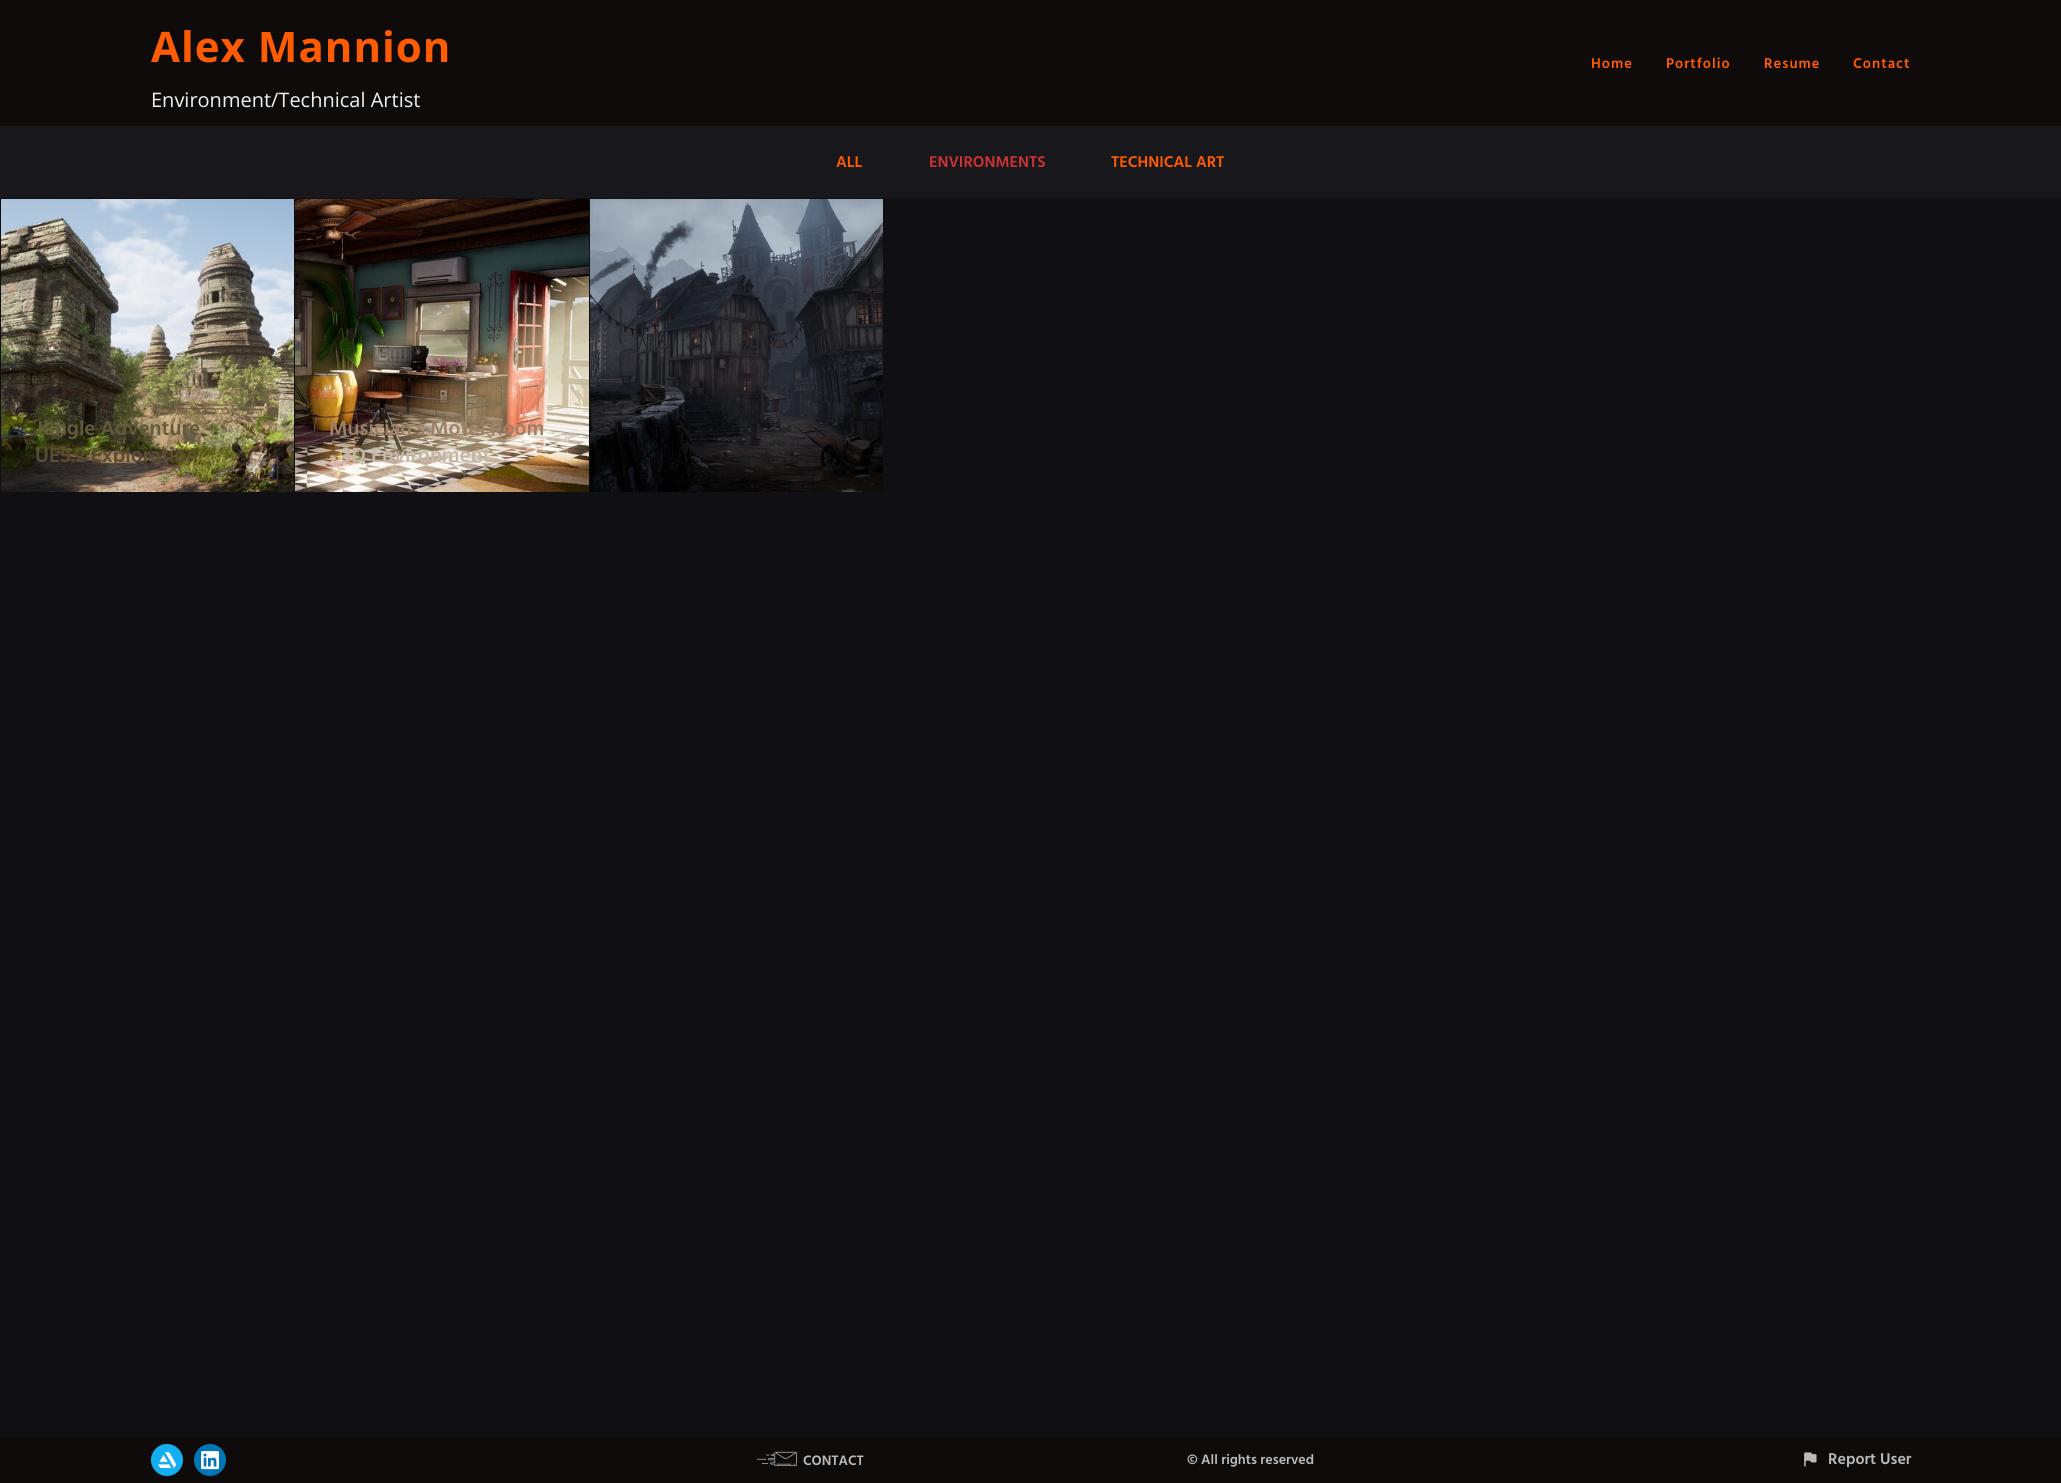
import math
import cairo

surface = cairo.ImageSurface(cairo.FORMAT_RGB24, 2061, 1483)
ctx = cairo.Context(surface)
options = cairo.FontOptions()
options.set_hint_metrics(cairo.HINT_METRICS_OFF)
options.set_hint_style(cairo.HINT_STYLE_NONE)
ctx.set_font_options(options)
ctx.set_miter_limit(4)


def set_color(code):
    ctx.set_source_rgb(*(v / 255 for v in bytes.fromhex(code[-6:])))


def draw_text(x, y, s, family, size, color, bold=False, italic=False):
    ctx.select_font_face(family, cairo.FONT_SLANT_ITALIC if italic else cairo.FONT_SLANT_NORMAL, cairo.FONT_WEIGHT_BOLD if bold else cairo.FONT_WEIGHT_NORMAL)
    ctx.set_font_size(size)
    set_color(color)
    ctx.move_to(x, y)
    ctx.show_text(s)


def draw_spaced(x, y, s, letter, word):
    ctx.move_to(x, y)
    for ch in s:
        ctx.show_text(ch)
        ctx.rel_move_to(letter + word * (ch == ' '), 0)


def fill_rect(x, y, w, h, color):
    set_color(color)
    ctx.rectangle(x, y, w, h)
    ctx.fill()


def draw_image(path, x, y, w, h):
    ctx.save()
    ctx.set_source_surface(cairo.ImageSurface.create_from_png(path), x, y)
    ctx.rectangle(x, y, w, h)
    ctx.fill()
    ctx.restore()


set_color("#101014")
ctx.paint()
fill_rect(0, 0, 2061, 126, "#0f0b0b")
ctx.select_font_face("Open Sans", cairo.FONT_SLANT_NORMAL, cairo.FONT_WEIGHT_BOLD)
ctx.set_font_size(42)
set_color("#ff5b00")
draw_spaced(151, 62, "Alex Mannion", 1, 0)
draw_text(151, 107, "Environment/Technical Artist", "Open Sans", 20, "#f1f1f1")
ctx.select_font_face("Hind Siliguri SemiBold")
ctx.set_font_size(14.5)
set_color("#ff5b00")
draw_spaced(1591, 68, "Home", 1, 0)
draw_spaced(1666, 68, "Portfolio", 1, 0)
draw_spaced(1764, 68, "Resume", 1, 0)
draw_spaced(1853, 68, "Contact", 1, 0)
fill_rect(0, 126, 2061, 72, "#18181c")
draw_text(836, 167, "ALL", "Hind Siliguri SemiBold", 16, "#ff5b00")
draw_text(929, 167, "ENVIRONMENTS", "Hind Siliguri SemiBold", 16, "#cc3333")
draw_text(1111, 167, "TECHNICAL ART", "Hind Siliguri SemiBold", 16, "#ff5b00")
draw_image("assets/img1.png", 1, 199, 293, 293)
draw_text(35, 435, "Jungle Adventure -", "Hind Siliguri SemiBold", 21.1, "#625a3b")
draw_text(35, 462, "UE5.2 Exploration", "Hind Siliguri SemiBold", 21.1, "#584d31")
draw_image("assets/img2.png", 295, 199, 294, 293)
draw_text(329, 435, "Musician's Motel Room", "Hind Siliguri SemiBold", 21.1, "#9c8069")
draw_text(329, 462, "- 3D Environment", "Hind Siliguri SemiBold", 21.1, "#c4b7a6")
draw_image("assets/img3.png", 590, 199, 293, 293)
fill_rect(0, 1437, 2061, 46, "#0f0b0b")
set_color("#13aff0")
ctx.arc(167, 1460, 16, 0, 2 * math.pi)
ctx.fill()
draw_image("assets/img4.png", 158, 1452, 18, 16)
set_color("#0077b5")
ctx.arc(210, 1460, 16, 0, 2 * math.pi)
ctx.fill()
draw_image("assets/img5.png", 201, 1451, 18, 19)
draw_image("assets/img6.png", 757, 1451, 40, 15)
draw_text(803, 1465, "CONTACT", "Hind Siliguri SemiBold", 14, "#bbbbbb")
draw_text(1187, 1464, "© All rights reserved", "Hind Siliguri SemiBold", 14, "#bbbbbb")
draw_image("assets/img7.png", 1804, 1452, 13, 15)
draw_text(1828, 1464, "Report User", "Hind Siliguri SemiBold", 16, "#bbbbbb")
surface.write_to_png("output.png")
